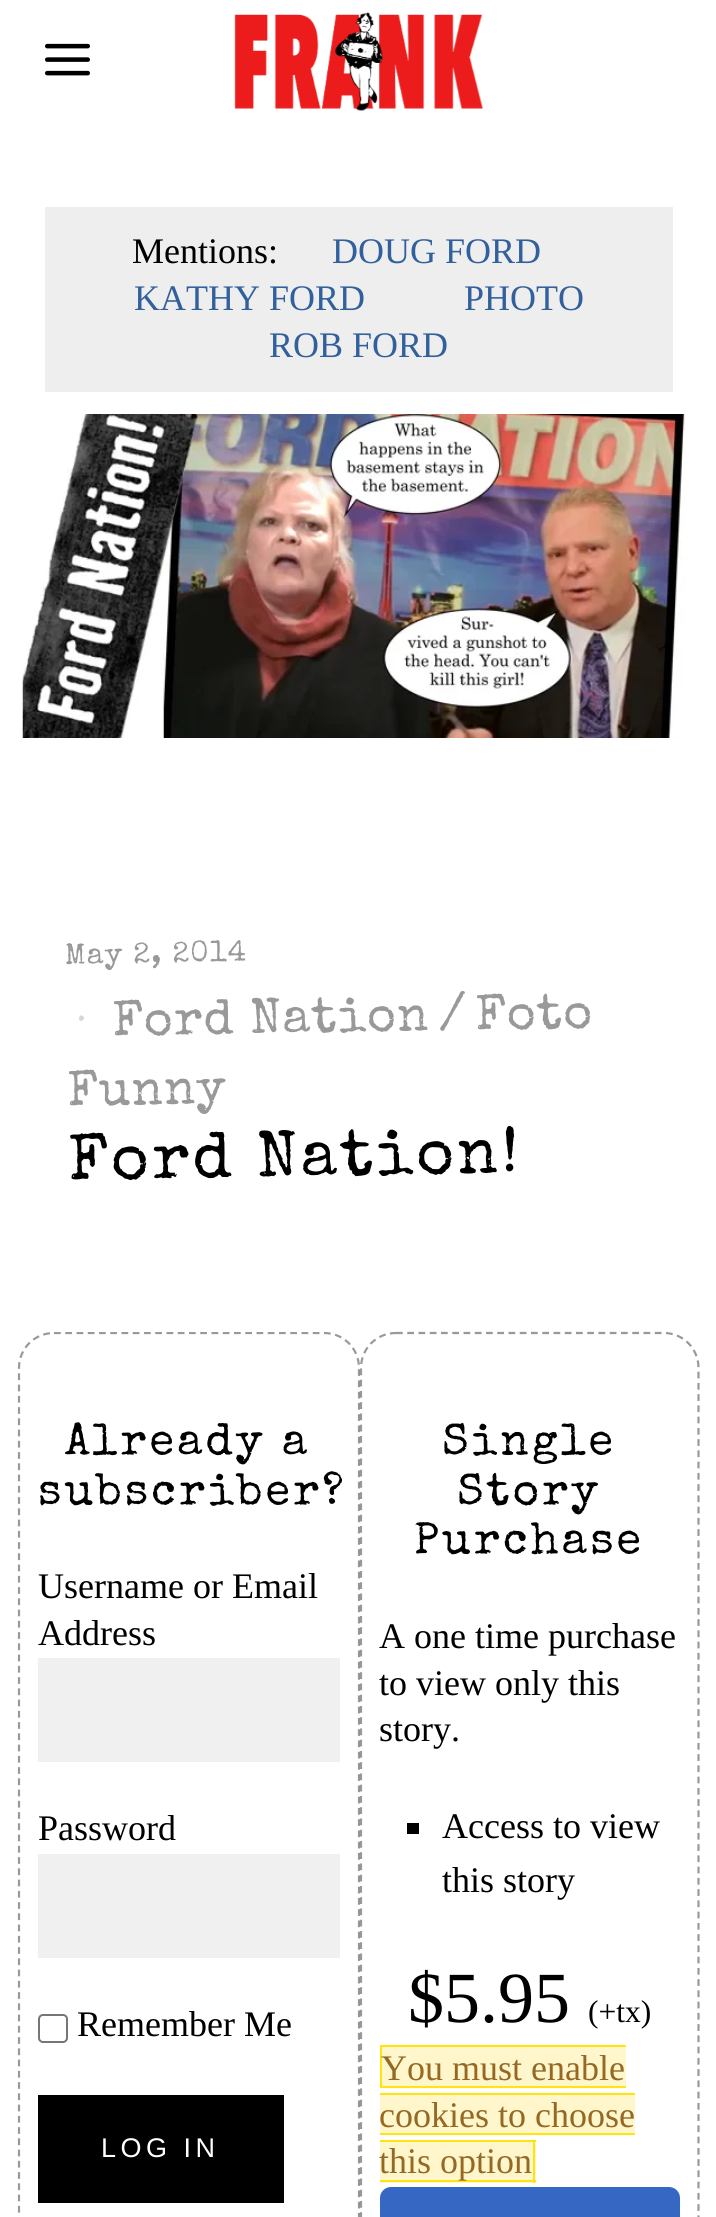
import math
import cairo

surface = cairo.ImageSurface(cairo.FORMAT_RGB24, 716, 2217)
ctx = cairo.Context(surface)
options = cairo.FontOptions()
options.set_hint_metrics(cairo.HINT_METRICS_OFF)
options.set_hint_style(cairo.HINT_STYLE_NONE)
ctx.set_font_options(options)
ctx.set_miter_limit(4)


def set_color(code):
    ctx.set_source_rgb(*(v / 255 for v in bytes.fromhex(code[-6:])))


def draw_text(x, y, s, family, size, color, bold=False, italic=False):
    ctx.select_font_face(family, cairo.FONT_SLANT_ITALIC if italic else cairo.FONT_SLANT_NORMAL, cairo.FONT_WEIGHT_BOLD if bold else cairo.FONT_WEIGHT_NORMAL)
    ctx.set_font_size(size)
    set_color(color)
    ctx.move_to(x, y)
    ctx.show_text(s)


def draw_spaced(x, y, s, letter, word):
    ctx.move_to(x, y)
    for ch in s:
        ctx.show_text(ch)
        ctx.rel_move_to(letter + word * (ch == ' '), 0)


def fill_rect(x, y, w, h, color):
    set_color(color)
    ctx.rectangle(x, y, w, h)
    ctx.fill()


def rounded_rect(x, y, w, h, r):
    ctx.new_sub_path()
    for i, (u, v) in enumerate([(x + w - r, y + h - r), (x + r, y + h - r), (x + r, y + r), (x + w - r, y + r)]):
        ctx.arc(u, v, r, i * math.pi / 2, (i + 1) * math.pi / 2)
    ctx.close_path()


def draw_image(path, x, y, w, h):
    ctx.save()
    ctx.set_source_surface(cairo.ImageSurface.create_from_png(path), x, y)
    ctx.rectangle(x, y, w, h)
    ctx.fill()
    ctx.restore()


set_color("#ffffff")
ctx.paint()
draw_image("assets/img1.png", 45, 43, 45, 33)
draw_image("assets/img2.png", 234, 12, 250, 99)
fill_rect(45, 207, 628, 185, "#eeeeee")
draw_text(132, 263, "Mentions:", "Liberation Serif", 36, "#000000")
draw_text(332, 263, "DOUG FORD", "Liberation Serif", 36, "#31609c")
draw_text(134, 310, "KATHY FORD", "Liberation Serif", 36, "#31609c")
draw_text(464, 310, "PHOTO", "Liberation Serif", 36, "#31609c")
draw_text(269, 357, "ROB FORD", "Liberation Serif", 36, "#31609c")
draw_image("assets/img3.png", 22, 414, 664, 324)
ctx.select_font_face("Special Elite")
ctx.set_font_size(29.75)
set_color("#999999")
ctx.save()
ctx.translate(65, 964)
ctx.rotate(-1 * math.pi / 180)
draw_spaced(0, 0, "May 2, 2014", 1.1, 0)
ctx.restore()
ctx.set_font_size(49.5)
set_color("#d6d6d6")
ctx.save()
ctx.translate(76, 1036)
ctx.rotate(-1 * math.pi / 180)
draw_spaced(0, 0, "·", 1.1, 0)
ctx.restore()
set_color("#999999")
ctx.save()
ctx.translate(113, 1035)
ctx.rotate(-1 * math.pi / 180)
draw_spaced(0, 0, "Ford Nation", 1.1, 0)
ctx.restore()
ctx.save()
ctx.translate(439, 1029)
ctx.rotate(-1 * math.pi / 180)
draw_spaced(0, 0, "/", 1.1, 0)
ctx.restore()
ctx.save()
ctx.translate(476, 1029)
ctx.rotate(-1 * math.pi / 180)
draw_spaced(0, 0, "Foto", 1.1, 0)
ctx.restore()
ctx.save()
ctx.translate(68, 1105)
ctx.rotate(-1 * math.pi / 180)
draw_spaced(0, 0, "Funny", 1.1, 0)
ctx.restore()
ctx.set_font_size(64.75)
set_color("#000000")
ctx.save()
ctx.translate(69, 1179)
ctx.rotate(-1 * math.pi / 180)
draw_spaced(0, 0, "Ford Nation!", 3.1, 0)
ctx.restore()
ctx.save()
ctx.rectangle(0, 1332, 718, 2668)
ctx.clip()
ctx.new_path()
ctx.move_to(54, 1333)
ctx.line_to(324, 1333)
ctx.curve_to(343.5, 1333, 359, 1348.5, 359, 1368)
ctx.line_to(359, 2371.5)
ctx.curve_to(359, 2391, 343.5, 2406.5, 324, 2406.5)
ctx.line_to(54, 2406.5)
ctx.curve_to(34.5, 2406.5, 19, 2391, 19, 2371.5)
ctx.line_to(19, 1368)
ctx.curve_to(19, 1348.5, 34.5, 1333, 54, 1333)
ctx.close_path()
set_color("#999999")
ctx.set_line_width(2.2)
ctx.set_dash([6.75, 4.5])
ctx.stroke()
ctx.restore()
ctx.set_font_size(45)
draw_spaced(65, 1454, "Already a", 3.1, 0)
draw_spaced(38, 1504, "subscriber?", 3.1, 0)
draw_text(38, 1598, "Username or Email", "Liberation Serif", 36, "#000000")
draw_text(38, 1645, "Address", "Liberation Serif", 36, "#000000")
fill_rect(38, 1658, 302, 104, "#f0f0f0")
draw_text(38, 1840, "Password", "Liberation Serif", 36, "#000000")
fill_rect(38, 1854, 302, 104, "#f0f0f0")
rounded_rect(39, 2015, 28, 27, 4)
set_color("#767676")
ctx.stroke()
draw_text(77, 2036, "Remember Me", "Liberation Serif", 36, "#000000")
fill_rect(38, 2095, 246, 108, "#000000")
ctx.select_font_face("Liberation Sans")
ctx.set_font_size(27)
set_color("#ffffff")
draw_spaced(101, 2157, "LOG IN", 4.5, 0)
ctx.set_source_rgba(1, 1, 1, 0.6)
rounded_rect(360, 1332, 340, 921, 36)
ctx.fill()
ctx.new_path()
ctx.move_to(396, 1333)
ctx.line_to(664, 1333)
ctx.curve_to(683, 1333, 698.5, 1348.5, 698.5, 1368)
ctx.line_to(698.5, 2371.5)
ctx.curve_to(698.5, 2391, 683, 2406.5, 664, 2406.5)
ctx.line_to(396, 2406.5)
ctx.curve_to(376.5, 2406.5, 361, 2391, 361, 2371.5)
ctx.line_to(361, 1368)
ctx.curve_to(361, 1348.5, 376.5, 1333, 396, 1333)
ctx.close_path()
ctx.set_source_rgba(0, 0, 0, 0.4)
ctx.set_line_width(2.2)
ctx.set_dash([6.75, 4.5])
ctx.stroke()
ctx.select_font_face("Special Elite")
ctx.set_font_size(45)
set_color("#000000")
draw_spaced(442, 1454, "Single", 3.1, 0)
draw_spaced(457, 1504, "Story", 3.1, 0)
draw_spaced(414, 1553, "Purchase", 3.1, 0)
draw_text(379, 1648, "A one time purchase", "Liberation Serif", 36, "#000000")
draw_text(379, 1695, "to view only this", "Liberation Serif", 36, "#000000")
draw_text(379, 1741, "story.", "Liberation Serif", 36, "#000000")
fill_rect(407, 1823, 12, 11, "#000000")
draw_text(442, 1838, "Access to view", "Liberation Serif", 36, "#000000")
draw_text(442, 1892, "this story", "Liberation Serif", 36, "#000000")
draw_text(408, 2022, "$5.95", "Liberation Serif", 72, "#000000")
draw_text(588, 2022, "(+tx)", "Liberation Serif", 31.5, "#000000")
fill_rect(382, 2047, 244, 39, "#fff7cb")
fill_rect(380, 2045, 246, 2, "#ffe40f")
fill_rect(380, 2086, 246, 2, "#ffe40f")
fill_rect(380, 2045, 2, 43, "#ffe40f")
draw_text(381, 2080, "You must enable", "Liberation Serif", 36, "#956824")
fill_rect(380, 2095, 255, 38, "#fff7cb")
draw_text(379, 2127, "cookies to choose", "Liberation Serif", 36, "#956824")
fill_rect(380, 2093, 255, 2, "#ffe40f")
fill_rect(380, 2133, 255, 2, "#ffe40f")
fill_rect(380, 2142, 156, 41, "#fff7cb")
fill_rect(380, 2140, 156, 2, "#ffe40f")
fill_rect(533, 2140, 2, 43, "#ffe40f")
fill_rect(380, 2180, 156, 2, "#ffe40f")
draw_text(379, 2173, "this option", "Liberation Serif", 36, "#956824")
set_color("#3667c3")
rounded_rect(380, 2187, 300, 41, 11)
ctx.fill()
surface.write_to_png("output.png")
